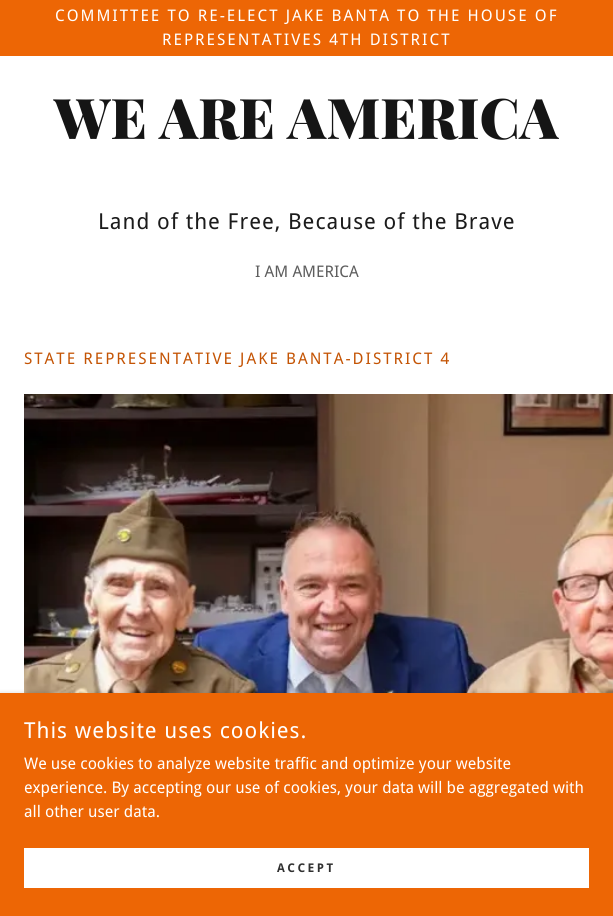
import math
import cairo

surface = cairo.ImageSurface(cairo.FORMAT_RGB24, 613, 916)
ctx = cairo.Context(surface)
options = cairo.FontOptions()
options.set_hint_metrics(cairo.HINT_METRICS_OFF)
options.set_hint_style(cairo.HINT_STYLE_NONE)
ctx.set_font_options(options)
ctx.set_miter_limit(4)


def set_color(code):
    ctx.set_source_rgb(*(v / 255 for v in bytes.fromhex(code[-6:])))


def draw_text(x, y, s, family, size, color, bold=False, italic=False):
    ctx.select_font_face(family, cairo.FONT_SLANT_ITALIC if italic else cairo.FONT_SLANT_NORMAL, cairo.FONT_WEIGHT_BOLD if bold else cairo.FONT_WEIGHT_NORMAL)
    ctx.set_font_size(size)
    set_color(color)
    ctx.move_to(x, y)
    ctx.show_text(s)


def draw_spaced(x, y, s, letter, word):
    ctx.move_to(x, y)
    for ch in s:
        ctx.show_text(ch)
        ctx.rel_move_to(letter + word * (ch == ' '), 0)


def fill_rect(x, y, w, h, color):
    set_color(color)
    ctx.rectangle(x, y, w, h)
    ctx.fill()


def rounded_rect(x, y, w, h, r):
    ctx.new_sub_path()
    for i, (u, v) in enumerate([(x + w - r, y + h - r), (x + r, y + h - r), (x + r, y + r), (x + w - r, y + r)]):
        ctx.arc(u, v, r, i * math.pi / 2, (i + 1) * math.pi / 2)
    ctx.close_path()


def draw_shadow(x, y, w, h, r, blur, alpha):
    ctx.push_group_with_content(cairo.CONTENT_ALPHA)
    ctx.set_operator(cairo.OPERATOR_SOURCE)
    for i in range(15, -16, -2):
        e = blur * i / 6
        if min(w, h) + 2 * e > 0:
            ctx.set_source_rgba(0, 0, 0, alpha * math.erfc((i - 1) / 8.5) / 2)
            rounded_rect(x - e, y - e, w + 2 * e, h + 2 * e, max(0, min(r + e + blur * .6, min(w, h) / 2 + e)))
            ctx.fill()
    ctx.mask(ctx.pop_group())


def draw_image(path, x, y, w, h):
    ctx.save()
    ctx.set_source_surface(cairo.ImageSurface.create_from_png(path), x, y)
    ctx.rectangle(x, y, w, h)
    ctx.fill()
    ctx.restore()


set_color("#ffffff")
ctx.paint()
fill_rect(0, 0, 613, 56, "#ed6605")
ctx.select_font_face("Droid Sans")
ctx.set_font_size(16)
set_color("#ffffff")
draw_spaced(55, 21, "COMMITTEE TO RE-ELECT JAKE BANTA TO THE HOUSE OF", 2, 0)
draw_spaced(162, 45, "REPRESENTATIVES 4TH DISTRICT", 2, 0)
draw_text(54, 139, "WE ARE AMERICA", "Playfair Display Black", 56, "#151515")
ctx.select_font_face("Droid Sans")
ctx.set_font_size(22)
set_color("#1b1b1b")
draw_spaced(98, 229, "Land of the Free, Because of the Brave", 1, 0)
draw_text(255, 277, "I AM AMERICA", "Droid Sans", 16, "#5e5e5e")
set_color("#c45404")
draw_spaced(24, 364, "STATE REPRESENTATIVE JAKE BANTA-DISTRICT 4", 2, 0)
draw_image("assets/img1.png", 24, 394, 589, 299)
set_color("#000000")
draw_shadow(0, 695, 613, 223, 0, 3, 0.3)
fill_rect(0, 693, 613, 223, "#ed6605")
ctx.set_font_size(22)
set_color("#ffffff")
draw_spaced(24, 738, "This website uses cookies.", 1, 0)
draw_text(24, 769, "We use cookies to analyze website traffic and optimize your website", "Droid Sans", 16, "#ffffff")
draw_text(24, 793, "experience. By accepting our use of cookies, your data will be aggregated with", "Droid Sans", 16, "#ffffff")
draw_text(24, 817, "all other user data.", "Droid Sans", 16, "#ffffff")
fill_rect(24, 848, 565, 40, "#ffffff")
ctx.select_font_face("Droid Sans", cairo.FONT_SLANT_NORMAL, cairo.FONT_WEIGHT_BOLD)
ctx.set_font_size(12)
set_color("#303030")
draw_spaced(277, 872, "ACCEPT", 2.5, 0)
surface.write_to_png("output.png")
